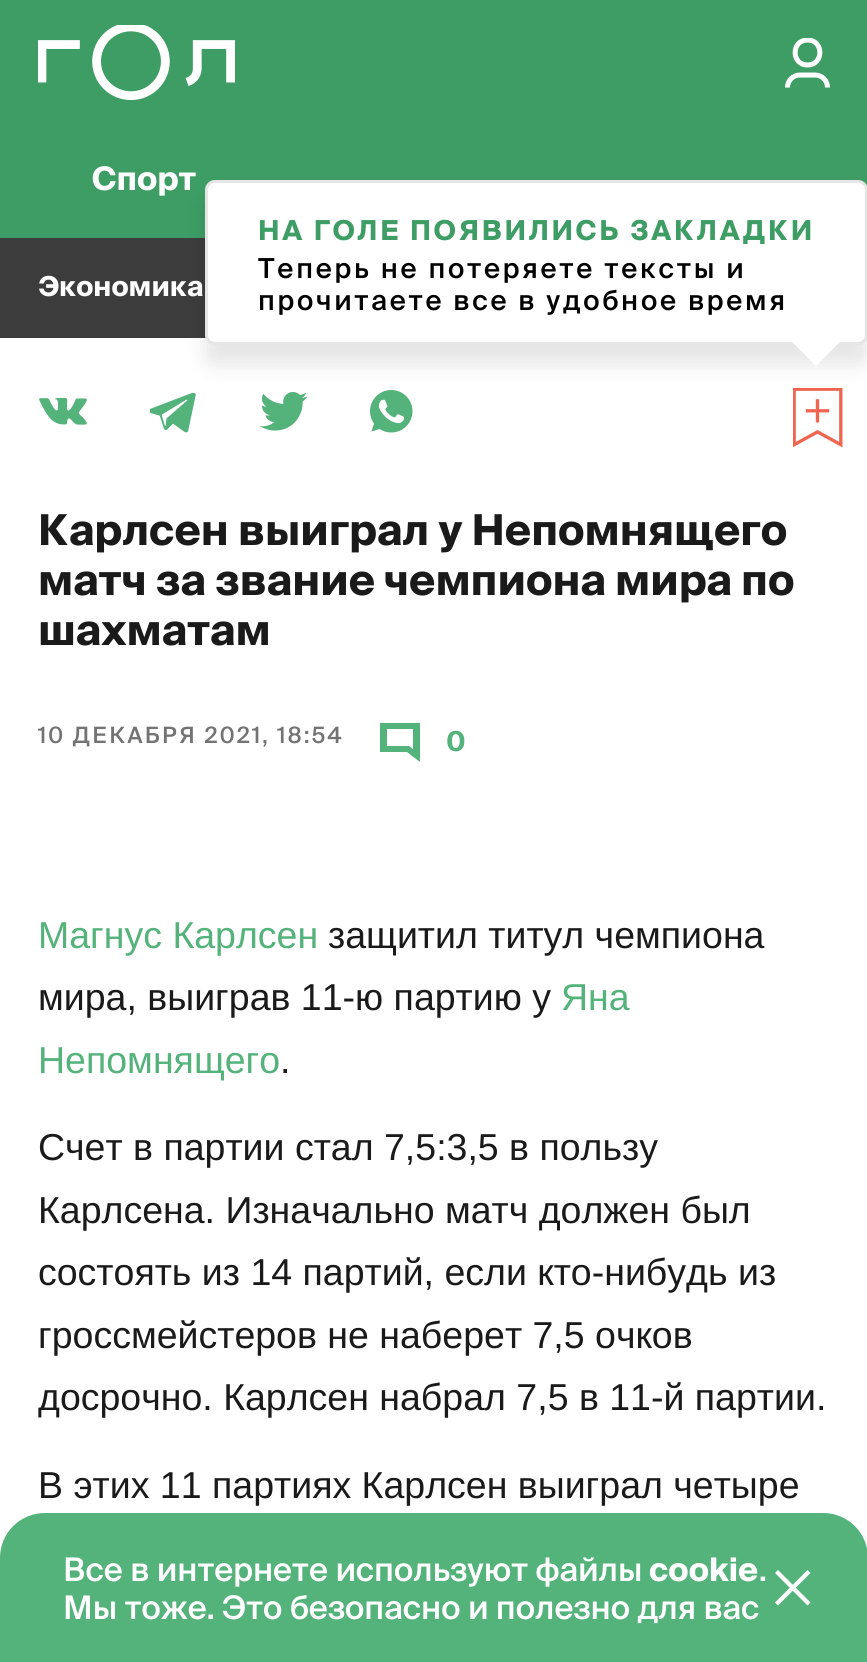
import math
import cairo

surface = cairo.ImageSurface(cairo.FORMAT_RGB24, 867, 1662)
ctx = cairo.Context(surface)
options = cairo.FontOptions()
options.set_hint_metrics(cairo.HINT_METRICS_OFF)
options.set_hint_style(cairo.HINT_STYLE_NONE)
ctx.set_font_options(options)
ctx.set_miter_limit(4)


def set_color(code):
    ctx.set_source_rgb(*(v / 255 for v in bytes.fromhex(code[-6:])))


def draw_text(x, y, s, family, size, color, bold=False, italic=False):
    ctx.select_font_face(family, cairo.FONT_SLANT_ITALIC if italic else cairo.FONT_SLANT_NORMAL, cairo.FONT_WEIGHT_BOLD if bold else cairo.FONT_WEIGHT_NORMAL)
    ctx.set_font_size(size)
    set_color(color)
    ctx.move_to(x, y)
    ctx.show_text(s)


def draw_spaced(x, y, s, letter, word):
    ctx.move_to(x, y)
    for ch in s:
        ctx.show_text(ch)
        ctx.rel_move_to(letter + word * (ch == ' '), 0)


def fill_rect(x, y, w, h, color):
    set_color(color)
    ctx.rectangle(x, y, w, h)
    ctx.fill()


def rounded_rect(x, y, w, h, r):
    ctx.new_sub_path()
    for i, (u, v) in enumerate([(x + w - r, y + h - r), (x + r, y + h - r), (x + r, y + r), (x + w - r, y + r)]):
        ctx.arc(u, v, r, i * math.pi / 2, (i + 1) * math.pi / 2)
    ctx.close_path()


def draw_shadow(x, y, w, h, r, blur, alpha):
    ctx.push_group_with_content(cairo.CONTENT_ALPHA)
    ctx.set_operator(cairo.OPERATOR_SOURCE)
    for i in range(15, -16, -2):
        e = blur * i / 6
        if min(w, h) + 2 * e > 0:
            ctx.set_source_rgba(0, 0, 0, alpha * math.erfc((i - 1) / 8.5) / 2)
            rounded_rect(x - e, y - e, w + 2 * e, h + 2 * e, max(0, min(r + e + blur * .6, min(w, h) / 2 + e)))
            ctx.fill()
    ctx.mask(ctx.pop_group())


def draw_image(path, x, y, w, h):
    ctx.save()
    ctx.set_source_surface(cairo.ImageSurface.create_from_png(path), x, y)
    ctx.rectangle(x, y, w, h)
    ctx.fill()
    ctx.restore()


set_color("#ffffff")
ctx.paint()
fill_rect(0, 0, 867, 238, "#3d9d65")
draw_image("assets/img1.png", 38, 25, 197, 76)
ctx.save()
ctx.rectangle(785, 38, 45, 50)
ctx.clip()
ctx.new_path()
ctx.move_to(807.5, 65)
ctx.curve_to(824, 65, 824, 40, 807.5, 40)
ctx.curve_to(791, 40, 791, 65, 807.5, 65)
ctx.close_path()
set_color("#ffffff")
ctx.set_line_width(5)
ctx.stroke()
ctx.restore()
ctx.new_path()
ctx.move_to(827.5, 87.5)
ctx.curve_to(827.5, 80.5, 822, 75, 815, 75)
ctx.line_to(800, 75)
ctx.curve_to(793, 75, 787.5, 80.5, 787.5, 87.5)
set_color("#ffffff")
ctx.set_line_width(5)
ctx.stroke()
draw_text(92, 190, "Спорт", "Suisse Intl", 32.5, "#ffffff", bold=True)
fill_rect(0, 238, 206, 100, "#3c3c3c")
draw_text(38, 296, "Экономика", "Suisse Intl", 27.5, "#ffffff", bold=True)
draw_image("assets/img3.png", 150, 393, 46, 40)
draw_image("assets/img4.png", 260, 392, 48, 39)
draw_image("assets/img5.png", 370, 390, 43, 43)
draw_image("assets/img6.png", 793, 388, 50, 60)
set_color("#000000")
draw_shadow(205, 200, 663, 165, 10, 10, 0.1)
set_color("#ffffff")
rounded_rect(205, 180, 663, 165, 10)
ctx.fill()
rounded_rect(206.5, 181.5, 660, 162, 8.5)
ctx.set_source_rgba(0, 0, 0, 0.1)
ctx.set_line_width(3)
ctx.stroke()
set_color("#3d9d65")
draw_spaced(258, 240, "НА ГОЛЕ ПОЯВИЛИСЬ ЗАКЛАДКИ", 2.75, 0)
ctx.select_font_face("Suisse Intl Medium")
set_color("#000000")
draw_spaced(258, 278, "Теперь не потеряете тексты и", 2.75, 0)
draw_spaced(258, 310, "прочитаете все в удобное время", 2.75, 0)
set_color("#ffffff")
ctx.new_path()
ctx.move_to(816, 292)
ctx.line_to(853, 329)
ctx.line_to(816, 366)
ctx.line_to(779, 329)
ctx.close_path()
ctx.fill()
draw_image("assets/img2.png", 39, 398, 48, 27)
draw_text(38, 545, "Карлсен выиграл у Непомнящего", "Suisse Intl", 42.5, "#1a1a1a", bold=True)
draw_text(38, 595, "матч за звание чемпиона мира по", "Suisse Intl", 42.5, "#1a1a1a", bold=True)
draw_text(38, 645, "шахматам", "Suisse Intl", 42.5, "#1a1a1a", bold=True)
ctx.select_font_face("Suisse Intl Medium")
ctx.set_font_size(22.5)
set_color("#737373")
draw_spaced(38, 743, "10 ДЕКАБРЯ 2021, 18:54", 2.25, 0)
ctx.save()
ctx.rectangle(380, 723, 40, 40)
ctx.clip()
set_color("#54b27b")
ctx.set_fill_rule(cairo.FILL_RULE_EVEN_ODD)
ctx.new_path()
ctx.move_to(407, 752)
ctx.line_to(420, 762)
ctx.line_to(420, 722)
ctx.line_to(380, 722)
ctx.line_to(380, 752)
ctx.close_path()
ctx.move_to(387, 746)
ctx.line_to(409, 746)
ctx.line_to(413, 749)
ctx.line_to(413, 729)
ctx.line_to(387, 729)
ctx.close_path()
ctx.fill()
ctx.restore()
ctx.select_font_face("Suisse Intl", cairo.FONT_SLANT_NORMAL, cairo.FONT_WEIGHT_BOLD)
ctx.set_font_size(27.5)
set_color("#54b27b")
draw_spaced(446, 751, "0", 2.75, 0)
draw_text(38, 948, "Магнус Карлсен", "Liberation Sans", 37.5, "#54b27b")
draw_text(328, 948, "защитил титул чемпиона", "Liberation Sans", 37.5, "#1a1a1a")
draw_text(38, 1010, "мира, выиграв 11-ю партию у", "Liberation Sans", 37.5, "#1a1a1a")
draw_text(561, 1010, "Яна", "Liberation Sans", 37.5, "#54b27b")
draw_text(38, 1073, "Непомнящего", "Liberation Sans", 37.5, "#54b27b")
draw_text(280, 1073, ".", "Liberation Sans", 37.5, "#1a1a1a")
draw_text(38, 1160, "Счет в партии стал 7,5:3,5 в пользу", "Liberation Sans", 37.5, "#1a1a1a")
draw_text(38, 1223, "Карлсена. Изначально матч должен был", "Liberation Sans", 37.5, "#1a1a1a")
draw_text(38, 1285, "состоять из 14 партий, если кто-нибудь из", "Liberation Sans", 37.5, "#1a1a1a")
draw_text(38, 1348, "гроссмейстеров не наберет 7,5 очков", "Liberation Sans", 37.5, "#1a1a1a")
draw_text(38, 1410, "досрочно. Карлсен набрал 7,5 в 11-й партии.", "Liberation Sans", 37.5, "#1a1a1a")
draw_text(38, 1498, "В этих 11 партиях Карлсен выиграл четыре", "Liberation Sans", 37.5, "#1a1a1a")
set_color("#54b27b")
ctx.new_path()
ctx.move_to(45, 1513)
ctx.line_to(823, 1513)
ctx.curve_to(848, 1513, 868, 1533, 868, 1558)
ctx.line_to(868, 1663)
ctx.line_to(0, 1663)
ctx.line_to(0, 1558)
ctx.curve_to(0, 1533, 20, 1513, 45, 1513)
ctx.close_path()
ctx.fill()
draw_text(63, 1581, "Все в интернете используют файлы", "Suisse Intl Medium", 32.5, "#ffffff")
draw_text(649, 1581, "cookie", "Suisse Intl", 32.5, "#ffffff", bold=True)
draw_text(759, 1581, ".", "Suisse Intl Medium", 32.5, "#ffffff")
draw_text(63, 1619, "Мы тоже. Это безопасно и полезно для вас", "Suisse Intl Medium", 32.5, "#ffffff")
ctx.set_fill_rule(cairo.FILL_RULE_EVEN_ODD)
ctx.new_path()
ctx.move_to(810.5, 1573)
ctx.line_to(778, 1605.5)
ctx.line_to(775, 1602.5)
ctx.line_to(807.5, 1570)
ctx.close_path()
ctx.fill()
ctx.new_path()
ctx.move_to(807.5, 1605.5)
ctx.line_to(775, 1573)
ctx.line_to(778, 1570)
ctx.line_to(810.5, 1602.5)
ctx.close_path()
ctx.fill()
surface.write_to_png("output.png")
